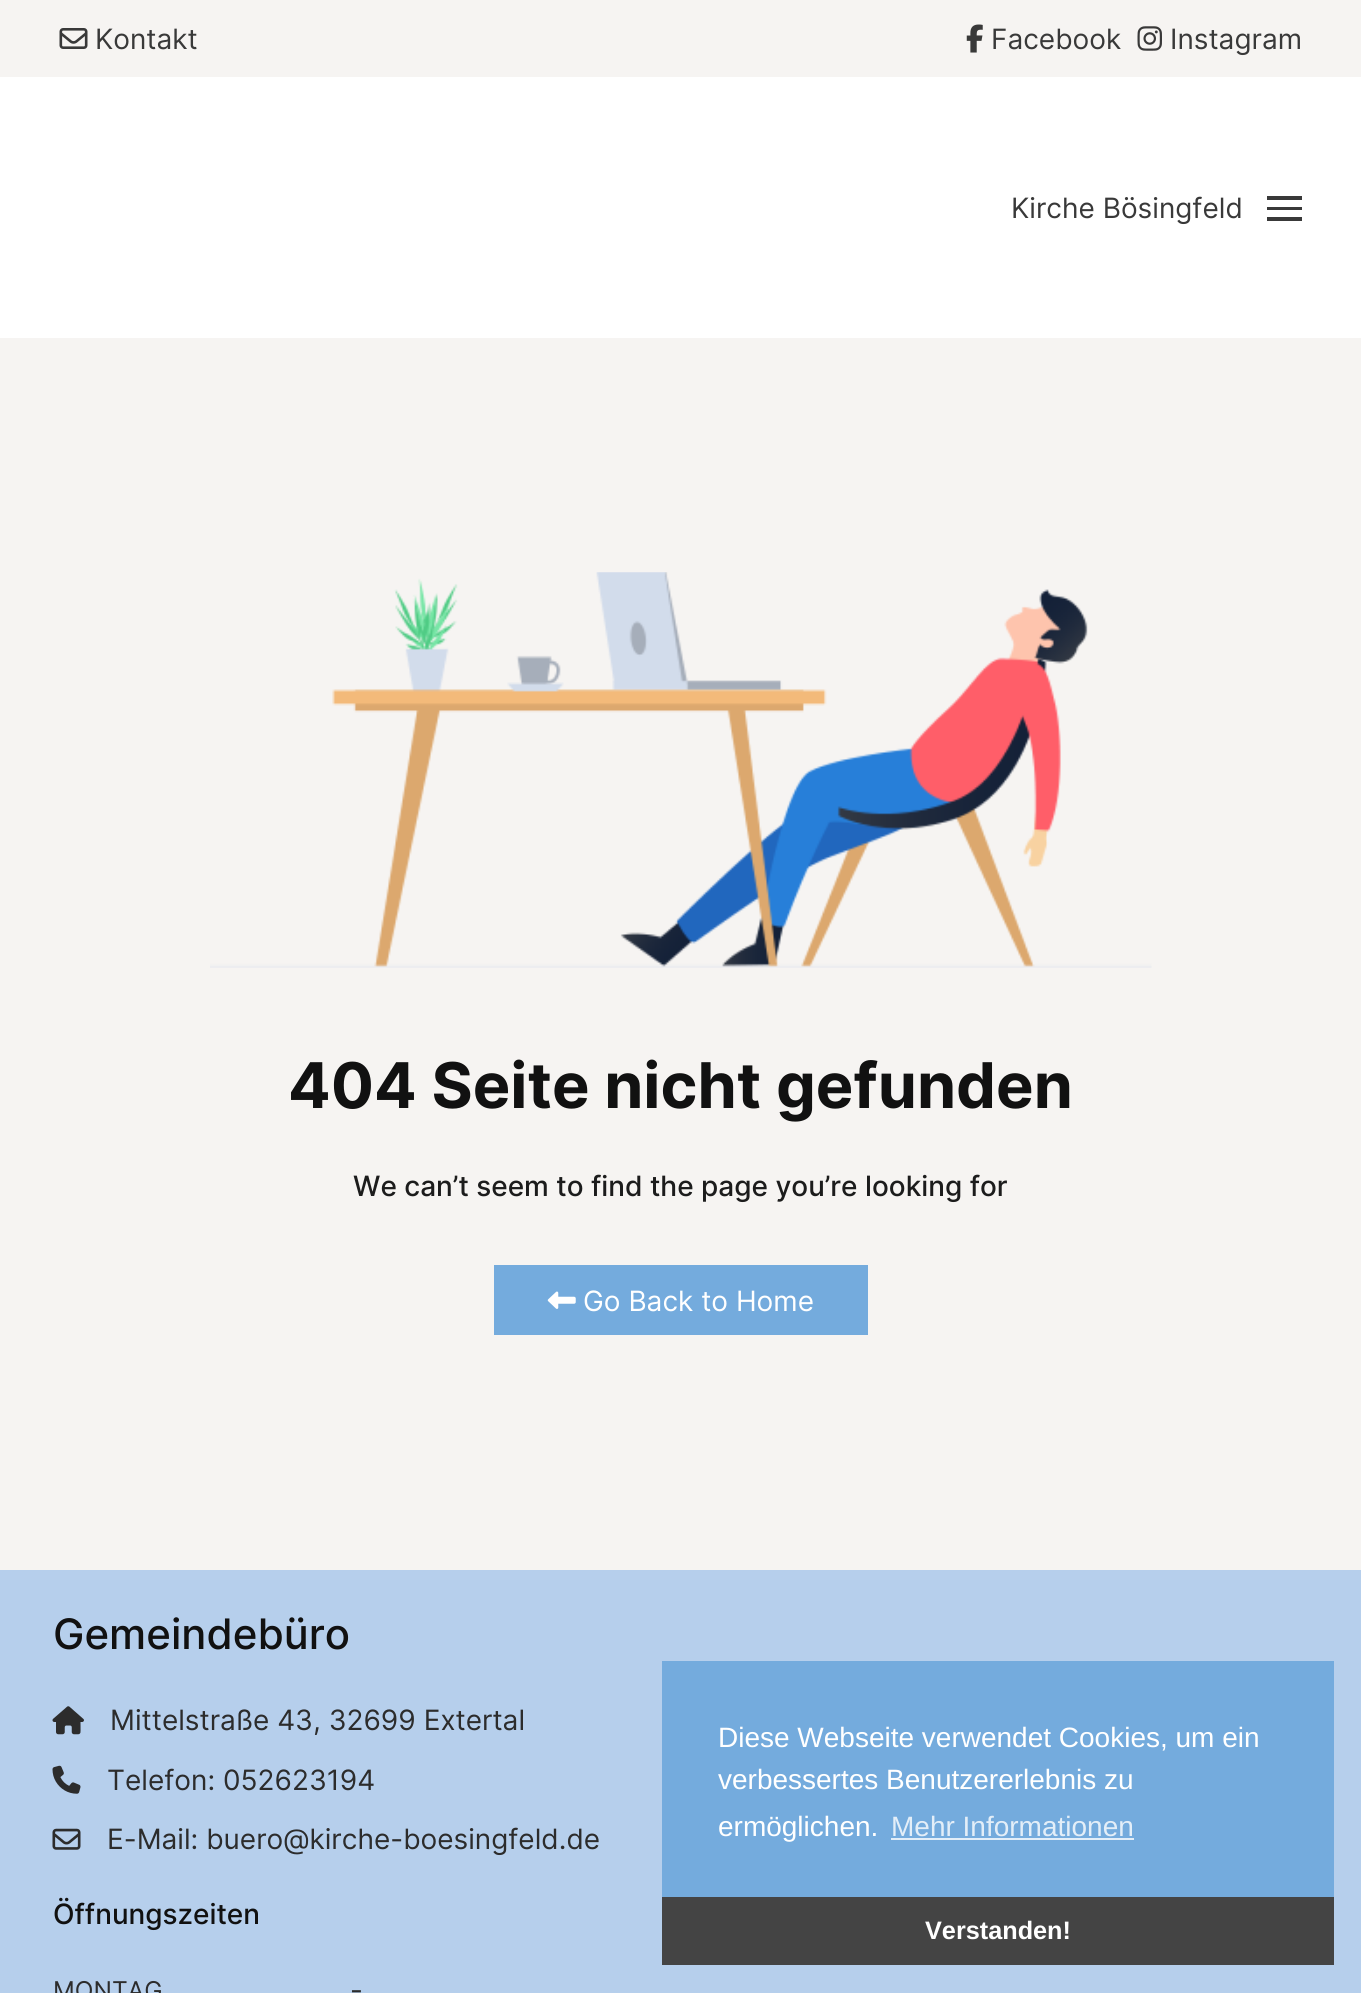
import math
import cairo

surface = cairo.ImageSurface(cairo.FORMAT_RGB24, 1361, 1993)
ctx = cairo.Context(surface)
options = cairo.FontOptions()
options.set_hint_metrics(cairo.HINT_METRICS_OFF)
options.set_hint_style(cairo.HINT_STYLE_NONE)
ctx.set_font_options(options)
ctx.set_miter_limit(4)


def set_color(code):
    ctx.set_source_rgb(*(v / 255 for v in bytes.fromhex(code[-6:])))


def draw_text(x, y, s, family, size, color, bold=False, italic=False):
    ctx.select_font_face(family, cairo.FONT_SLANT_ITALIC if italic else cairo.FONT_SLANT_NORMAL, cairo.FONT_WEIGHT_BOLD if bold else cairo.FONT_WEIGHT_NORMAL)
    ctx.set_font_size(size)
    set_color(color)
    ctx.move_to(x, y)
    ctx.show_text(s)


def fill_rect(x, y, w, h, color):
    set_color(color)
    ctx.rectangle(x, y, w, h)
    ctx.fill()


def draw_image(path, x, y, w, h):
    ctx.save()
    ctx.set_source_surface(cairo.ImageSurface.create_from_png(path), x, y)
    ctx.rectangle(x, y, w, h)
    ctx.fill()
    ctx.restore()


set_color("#ffffff")
ctx.paint()
fill_rect(0, 0, 1361, 77, "#f6f4f2")
draw_image("assets/img1.png", 59, 28, 29, 21)
draw_text(95, 49, "Kontakt", "Inter", 28, "#393939")
draw_image("assets/img2.png", 966, 24, 17, 29)
draw_text(991, 49, "Facebook", "Inter", 28, "#393939")
draw_image("assets/img3.png", 1137, 26, 25, 25)
draw_text(1170, 49, "Instagram", "Inter", 28, "#393939")
draw_text(1011, 218, "Kirche Bösingfeld", "Inter", 28, "#393939")
fill_rect(1267, 196, 35, 4, "#393939")
fill_rect(1267, 207, 35, 3, "#393939")
fill_rect(1267, 217, 35, 4, "#393939")
fill_rect(0, 338, 1361, 1232, "#f6f4f2")
draw_image("assets/img4.png", 210, 572, 942, 396)
draw_text(288, 1108, "404 Seite nicht gefunden", "Inter", 63, "#111111", bold=True)
draw_text(353, 1196, "We can’t seem to find the page you’re looking for", "Inter Medium", 28, "#1c1c1c")
fill_rect(494, 1265, 374, 70, "#74abdd")
draw_image("assets/img5.png", 547, 1291, 29, 18)
draw_text(583, 1311, "Go Back to Home", "Inter", 28, "#ffffff")
fill_rect(0, 1570, 1361, 423, "#b6cfec")
draw_text(53, 1649, "Gemeindebüro", "Inter Medium", 42, "#111111")
draw_image("assets/img6.png", 52, 1706, 32, 29)
draw_text(110, 1730, "Mittelstraße 43, 32699 Extertal", "Inter", 28, "#2c2c2c")
draw_image("assets/img7.png", 52, 1765, 29, 29)
draw_text(107, 1790, "Telefon: 052623194", "Inter", 28, "#2c2c2c")
draw_image("assets/img8.png", 52, 1828, 29, 22)
draw_text(107, 1849, "E-Mail: buero@kirche-boesingfeld.de", "Inter", 28, "#2c2c2c")
draw_text(53, 1924, "Öffnungszeiten", "Inter Medium", 28, "#111111")
draw_text(53, 1999, "MONTAG", "Inter", 24.5, "#2c2c2c")
draw_text(350, 2000, "-", "Inter", 28, "#2c2c2c")
fill_rect(662, 1661, 672, 236, "#74abdd")
draw_text(718, 1747, "Diese Webseite verwendet Cookies, um ein", "Liberation Sans", 28, "#ffffff")
draw_text(718, 1789, "verbessertes Benutzererlebnis zu", "Liberation Sans", 28, "#ffffff")
draw_text(718, 1836, "ermöglichen.", "Liberation Sans", 28, "#ffffff")
draw_text(891, 1836, "Mehr Informationen", "Liberation Sans", 28, "#e3eef8")
fill_rect(891, 1838, 243, 2, "#e3eef8")
fill_rect(662, 1897, 672, 68, "#444444")
draw_text(925, 1939, "Verstanden!", "Liberation Sans", 25.25, "#ffffff", bold=True)
surface.write_to_png("output.png")
